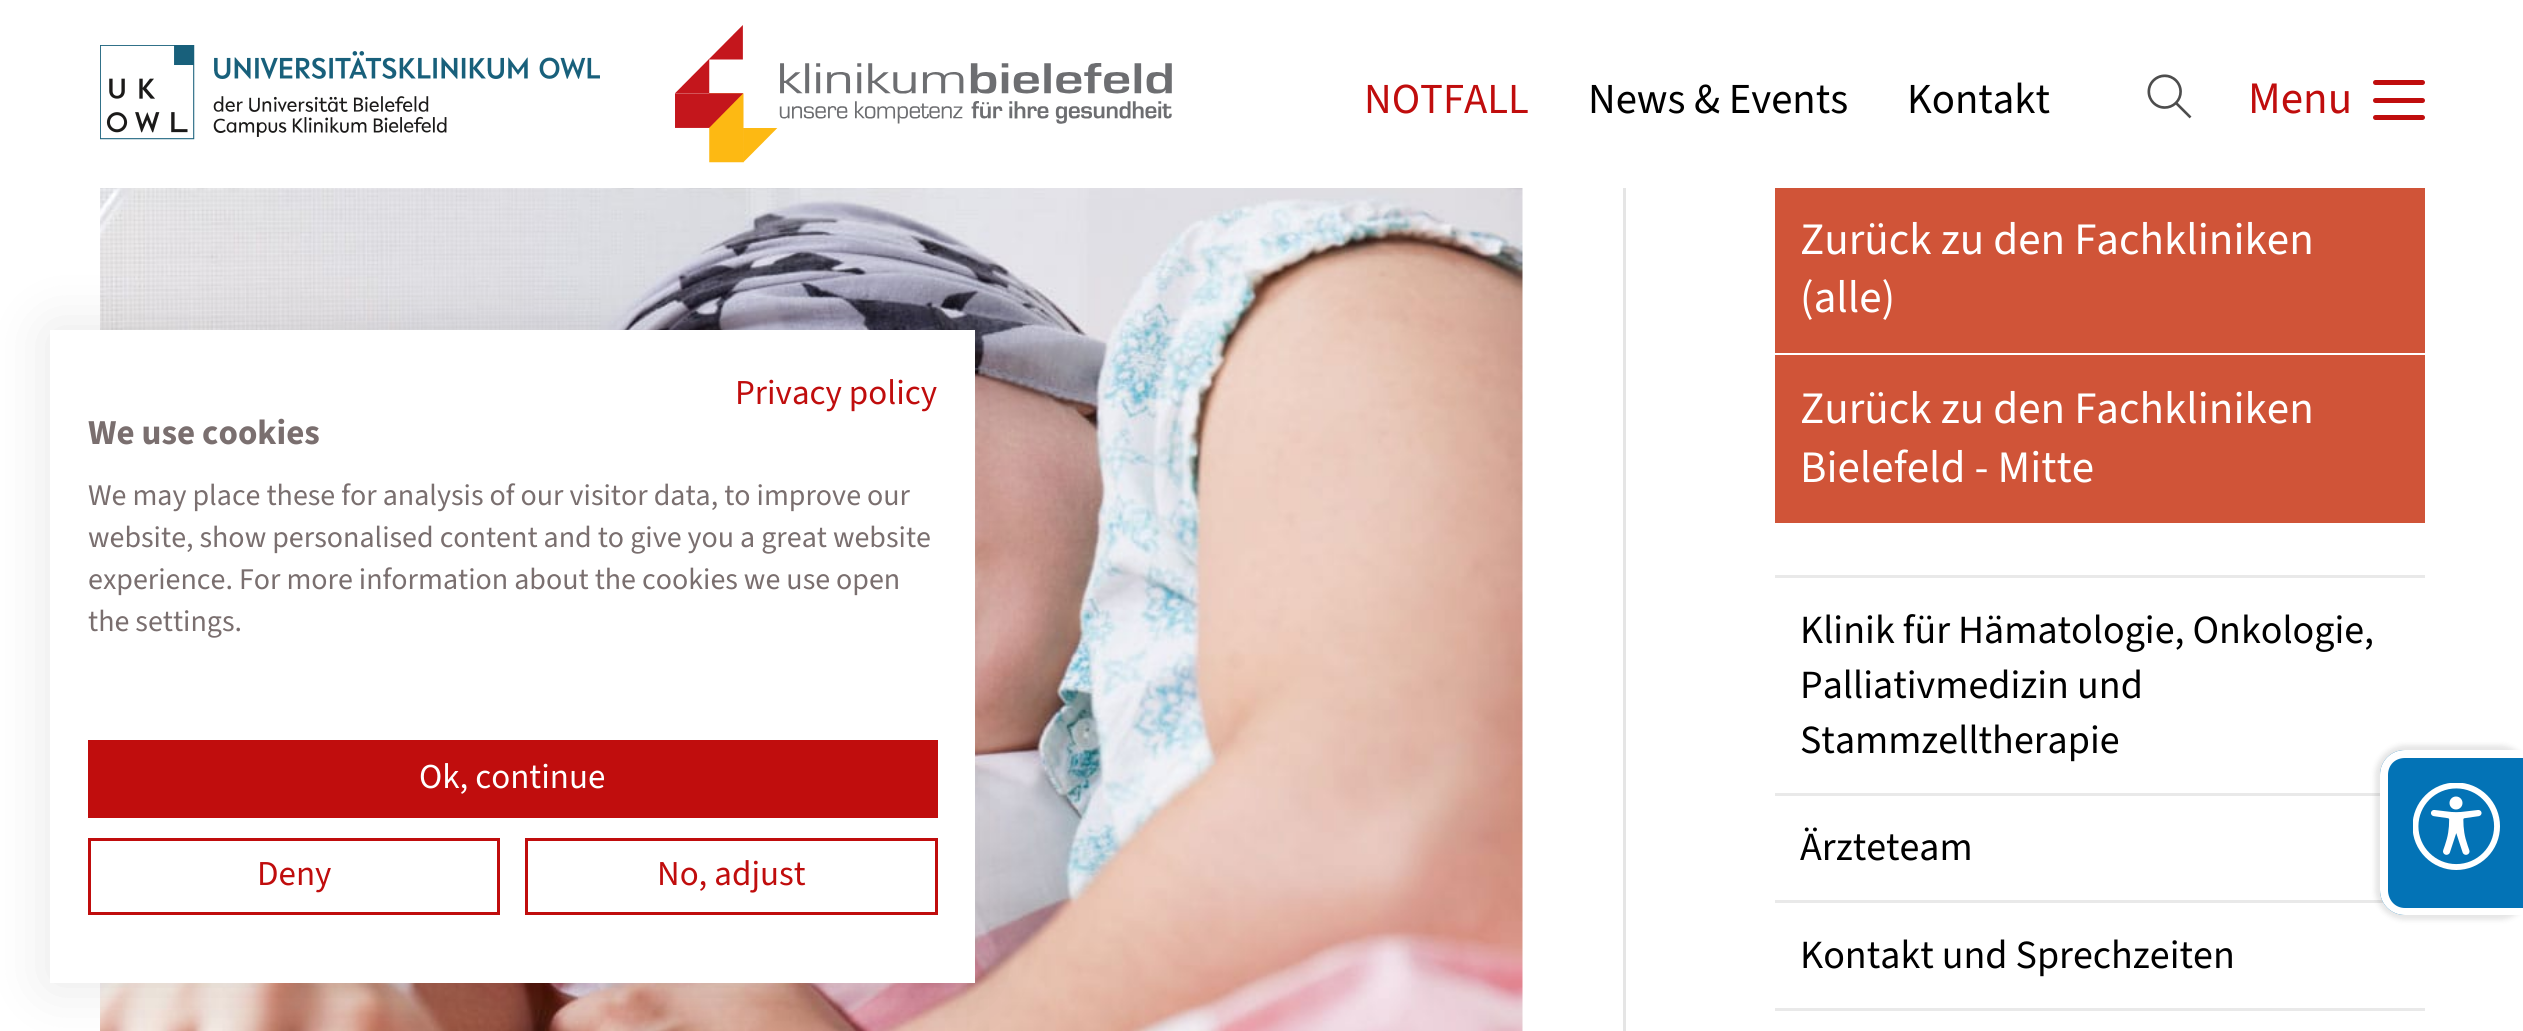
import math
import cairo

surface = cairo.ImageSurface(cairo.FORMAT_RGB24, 2523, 1031)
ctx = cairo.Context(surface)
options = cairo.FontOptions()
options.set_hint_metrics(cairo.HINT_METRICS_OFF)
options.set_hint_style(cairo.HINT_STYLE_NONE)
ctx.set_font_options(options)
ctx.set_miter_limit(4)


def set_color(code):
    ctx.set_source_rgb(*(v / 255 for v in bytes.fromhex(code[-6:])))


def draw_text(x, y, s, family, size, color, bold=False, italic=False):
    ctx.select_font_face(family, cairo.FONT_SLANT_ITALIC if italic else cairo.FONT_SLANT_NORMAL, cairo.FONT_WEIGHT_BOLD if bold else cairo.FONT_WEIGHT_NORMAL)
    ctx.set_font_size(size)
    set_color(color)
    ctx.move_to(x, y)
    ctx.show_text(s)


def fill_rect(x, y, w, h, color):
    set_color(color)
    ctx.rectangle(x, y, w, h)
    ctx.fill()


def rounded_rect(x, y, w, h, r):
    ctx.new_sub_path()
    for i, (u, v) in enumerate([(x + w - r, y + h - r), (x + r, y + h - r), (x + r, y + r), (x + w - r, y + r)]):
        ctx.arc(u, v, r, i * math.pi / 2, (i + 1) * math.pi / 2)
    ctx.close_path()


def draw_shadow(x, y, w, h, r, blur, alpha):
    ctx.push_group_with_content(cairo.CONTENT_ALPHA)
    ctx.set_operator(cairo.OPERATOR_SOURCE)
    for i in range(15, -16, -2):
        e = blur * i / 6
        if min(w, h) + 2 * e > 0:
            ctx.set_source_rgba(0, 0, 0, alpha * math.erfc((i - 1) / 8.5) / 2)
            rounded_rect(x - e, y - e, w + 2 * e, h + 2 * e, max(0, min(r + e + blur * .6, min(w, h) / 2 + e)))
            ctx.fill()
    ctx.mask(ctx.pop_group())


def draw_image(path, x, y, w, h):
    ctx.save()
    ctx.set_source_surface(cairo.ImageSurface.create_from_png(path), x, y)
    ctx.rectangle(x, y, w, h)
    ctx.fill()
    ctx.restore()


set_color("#ffffff")
ctx.paint()
draw_image("assets/img4.png", 100, 188, 1423, 843)
set_color("#000000")
draw_shadow(50, 330, 925, 653, 0, 30, 0.1)
fill_rect(50, 330, 925, 653, "#ffffff")
draw_text(735, 404, "Privacy policy", "Source Sans 3 ExtraLight", 35, "#c00d0d")
draw_text(88, 444, "We use cookies", "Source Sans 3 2 ExtraLight", 35, "#7a6f6f")
draw_text(88, 505, "We may place these for analysis of our visitor data, to improve our", "Source Sans 3 ExtraLight", 30, "#7a6f6f")
draw_text(88, 547, "website, show personalised content and to give you a great website", "Source Sans 3 ExtraLight", 30, "#7a6f6f")
draw_text(88, 589, "experience. For more information about the cookies we use open", "Source Sans 3 ExtraLight", 30, "#7a6f6f")
draw_text(88, 631, "the settings.", "Source Sans 3 ExtraLight", 30, "#7a6f6f")
fill_rect(88, 740, 850, 78, "#c00d0d")
draw_text(419, 788, "Ok, continue", "Source Sans 3 ExtraLight", 35, "#ffffff")
ctx.rectangle(89.5, 839.5, 409, 74)
set_color("#c00d0d")
ctx.set_line_width(3)
ctx.stroke()
draw_text(257, 885, "Deny", "Source Sans 3 ExtraLight", 35, "#c00d0d")
ctx.rectangle(526.5, 839.5, 410, 74)
ctx.stroke()
draw_text(657, 885, "No, adjust", "Source Sans 3 ExtraLight", 35, "#c00d0d")
draw_image("assets/img1.png", 100, 45, 500, 95)
draw_image("assets/img2.png", 675, 25, 497, 138)
draw_text(1364, 113, "NOTFALL", "Source Sans 3 ExtraLight", 42.75, "#c00d0d")
draw_text(1588, 113, "News & Events", "Source Sans 3 ExtraLight", 42.75, "#000000")
draw_text(1907, 113, "Kontakt", "Source Sans 3 ExtraLight", 42.75, "#000000")
draw_image("assets/img3.png", 2147, 74, 45, 45)
draw_text(2248, 113, "Menu", "Source Sans 3 ExtraLight", 45, "#c00d0d")
rounded_rect(2373, 98, 52, 5, 2.5)
ctx.fill()
rounded_rect(2373, 80, 52, 5, 2.5)
ctx.fill()
rounded_rect(2373, 115, 52, 5, 2.5)
ctx.fill()
fill_rect(1623, 188, 3, 843, "#e5e5e5")
fill_rect(1775, 188, 650, 165, "#d05438")
draw_text(1800, 254, "Zurück zu den Fachkliniken", "Source Sans 3 ExtraLight", 45, "#ffffff")
draw_text(1800, 312, "(alle)", "Source Sans 3 ExtraLight", 45, "#ffffff")
fill_rect(1775, 355, 650, 168, "#d05438")
draw_text(1800, 423, "Zurück zu den Fachkliniken", "Source Sans 3 ExtraLight", 45, "#ffffff")
draw_text(1800, 482, "Bielefeld - Mitte", "Source Sans 3 ExtraLight", 45, "#ffffff")
fill_rect(1775, 575, 650, 3, "#e9e9e9")
fill_rect(1775, 793, 605, 3, "#e9e9e9")
draw_text(1800, 643, "Klinik für Hämatologie, Onkologie,", "Source Sans 3 ExtraLight", 40, "#000000")
draw_text(1800, 698, "Palliativmedizin und", "Source Sans 3 ExtraLight", 40, "#000000")
draw_text(1800, 753, "Stammzelltherapie", "Source Sans 3 ExtraLight", 40, "#000000")
fill_rect(1775, 900, 609, 3, "#e9e9e9")
draw_text(1800, 860, "Ärzteteam", "Source Sans 3 ExtraLight", 40, "#000000")
fill_rect(1775, 1008, 650, 3, "#e9e9e9")
draw_text(1800, 968, "Kontakt und Sprechzeiten", "Source Sans 3 ExtraLight", 40, "#000000")
set_color("#000000")
draw_shadow(2375, 745, 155, 175, 30, 2.5, 0.1)
set_color("#0373b6")
ctx.new_path()
ctx.move_to(2405, 750)
ctx.line_to(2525, 750)
ctx.line_to(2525, 915)
ctx.line_to(2405, 915)
ctx.curve_to(2391, 915, 2380, 904, 2380, 890)
ctx.line_to(2380, 775)
ctx.curve_to(2380, 761, 2391, 750, 2405, 750)
ctx.close_path()
ctx.fill()
set_color("#ffffff")
ctx.set_fill_rule(cairo.FILL_RULE_EVEN_ODD)
ctx.new_path()
ctx.move_to(2405, 750)
ctx.line_to(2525, 750)
ctx.line_to(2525, 915)
ctx.line_to(2405, 915)
ctx.curve_to(2391, 915, 2380, 904, 2380, 890)
ctx.line_to(2380, 775)
ctx.curve_to(2380, 761, 2391, 750, 2405, 750)
ctx.close_path()
ctx.move_to(2405, 758)
ctx.line_to(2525, 758)
ctx.line_to(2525, 908)
ctx.line_to(2405, 908)
ctx.curve_to(2395, 908, 2388, 900, 2388, 890)
ctx.line_to(2388, 775)
ctx.curve_to(2388, 765, 2395, 758, 2405, 758)
ctx.close_path()
ctx.fill()
draw_image("assets/img5.png", 2413, 783, 87, 87)
surface.write_to_png("output.png")
